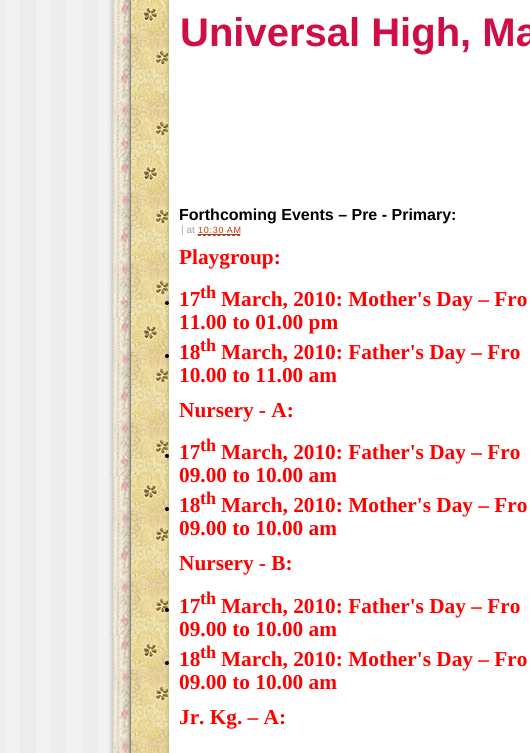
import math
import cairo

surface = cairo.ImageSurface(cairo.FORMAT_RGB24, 530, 753)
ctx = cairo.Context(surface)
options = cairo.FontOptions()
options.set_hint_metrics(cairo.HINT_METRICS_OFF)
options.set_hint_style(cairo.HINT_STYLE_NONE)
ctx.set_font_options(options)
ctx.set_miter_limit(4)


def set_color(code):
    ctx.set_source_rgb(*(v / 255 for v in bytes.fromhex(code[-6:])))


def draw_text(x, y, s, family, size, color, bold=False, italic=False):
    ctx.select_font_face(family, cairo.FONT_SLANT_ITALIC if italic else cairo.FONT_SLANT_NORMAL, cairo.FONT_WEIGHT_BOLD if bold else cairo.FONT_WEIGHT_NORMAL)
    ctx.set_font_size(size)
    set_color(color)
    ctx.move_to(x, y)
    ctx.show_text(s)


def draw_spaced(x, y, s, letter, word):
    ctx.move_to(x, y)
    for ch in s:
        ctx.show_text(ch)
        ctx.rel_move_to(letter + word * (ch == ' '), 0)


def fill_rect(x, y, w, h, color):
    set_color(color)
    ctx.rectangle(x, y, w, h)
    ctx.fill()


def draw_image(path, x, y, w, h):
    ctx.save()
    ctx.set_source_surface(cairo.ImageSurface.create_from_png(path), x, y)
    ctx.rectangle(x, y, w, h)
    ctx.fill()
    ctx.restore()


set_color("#ffffff")
ctx.paint()
draw_image("assets/img1.png", 0, 0, 6, 753)
draw_image("assets/img2.png", 6, 0, 524, 753)
draw_text(180, 46, "Universal High, Ma", "Liberation Sans", 40, "#cf0e45", bold=True)
draw_text(179, 220, "Forthcoming Events – Pre - Primary:", "Liberation Sans", 16, "#000000", bold=True)
draw_text(181, 233, "| at", "Liberation Sans", 10, "#a0a0a0")
ctx.set_font_size(9)
set_color("#cc3300")
draw_spaced(198, 233, "10:30 AM", 0.75, 0)
ctx.new_path()
ctx.move_to(198, 235.5)
ctx.line_to(240, 235.5)
set_color("#666666")
ctx.set_line_width(1)
ctx.set_dash([3, 1.88])
ctx.stroke()
ctx.new_path()
ctx.move_to(197.5, 234.5)
ctx.line_to(240.5, 234.5)
set_color("#cc3300")
ctx.set_dash([1, 1])
ctx.stroke()
fill_rect(198, 234, 42, 1, "#cc3300")
draw_text(179, 264, "Playgroup:", "Liberation Serif", 21.3, "#ff0000", bold=True)
set_color("#000000")
ctx.new_path()
ctx.arc(167, 303, 2, 0, 2 * math.pi)
ctx.fill()
draw_text(179, 306, "17", "Liberation Serif", 21.3, "#ff0000", bold=True)
draw_text(200, 298, "th", "Liberation Serif", 18, "#ff0000", bold=True)
draw_text(221, 306, "March, 2010: Mother's Day – Fro", "Liberation Serif", 21.3, "#ff0000", bold=True)
draw_text(179, 329, "11.00 to 01.00 pm", "Liberation Serif", 21.3, "#ff0000", bold=True)
set_color("#000000")
ctx.new_path()
ctx.arc(167, 356, 2, 0, 2 * math.pi)
ctx.fill()
draw_text(179, 359, "18", "Liberation Serif", 21.3, "#ff0000", bold=True)
draw_text(200, 351, "th", "Liberation Serif", 18, "#ff0000", bold=True)
draw_text(221, 359, "March, 2010: Father's Day – Fro", "Liberation Serif", 21.3, "#ff0000", bold=True)
draw_text(179, 382, "10.00 to 11.00 am", "Liberation Serif", 21.3, "#ff0000", bold=True)
draw_text(179, 417, "Nursery - A:", "Liberation Serif", 21.3, "#ff0000", bold=True)
set_color("#000000")
ctx.new_path()
ctx.arc(167, 456, 2, 0, 2 * math.pi)
ctx.fill()
draw_text(179, 459, "17", "Liberation Serif", 21.3, "#ff0000", bold=True)
draw_text(200, 451, "th", "Liberation Serif", 18, "#ff0000", bold=True)
draw_text(221, 459, "March, 2010: Father's Day – Fro", "Liberation Serif", 21.3, "#ff0000", bold=True)
draw_text(179, 482, "09.00 to 10.00 am", "Liberation Serif", 21.3, "#ff0000", bold=True)
set_color("#000000")
ctx.new_path()
ctx.arc(167, 509, 2, 0, 2 * math.pi)
ctx.fill()
draw_text(179, 512, "18", "Liberation Serif", 21.3, "#ff0000", bold=True)
draw_text(200, 504, "th", "Liberation Serif", 18, "#ff0000", bold=True)
draw_text(221, 512, "March, 2010: Mother's Day – Fro", "Liberation Serif", 21.3, "#ff0000", bold=True)
draw_text(179, 535, "09.00 to 10.00 am", "Liberation Serif", 21.3, "#ff0000", bold=True)
draw_text(179, 570, "Nursery - B:", "Liberation Serif", 21.3, "#ff0000", bold=True)
set_color("#000000")
ctx.new_path()
ctx.arc(167, 610, 2, 0, 2 * math.pi)
ctx.fill()
draw_text(179, 613, "17", "Liberation Serif", 21.3, "#ff0000", bold=True)
draw_text(200, 604, "th", "Liberation Serif", 18, "#ff0000", bold=True)
draw_text(221, 613, "March, 2010: Father's Day – Fro", "Liberation Serif", 21.3, "#ff0000", bold=True)
draw_text(179, 636, "09.00 to 10.00 am", "Liberation Serif", 21.3, "#ff0000", bold=True)
set_color("#000000")
ctx.new_path()
ctx.arc(167, 663, 2, 0, 2 * math.pi)
ctx.fill()
draw_text(179, 666, "18", "Liberation Serif", 21.3, "#ff0000", bold=True)
draw_text(200, 658, "th", "Liberation Serif", 18, "#ff0000", bold=True)
draw_text(221, 666, "March, 2010: Mother's Day – Fro", "Liberation Serif", 21.3, "#ff0000", bold=True)
draw_text(179, 689, "09.00 to 10.00 am", "Liberation Serif", 21.3, "#ff0000", bold=True)
draw_text(179, 724, "Jr. Kg. – A:", "Liberation Serif", 21.3, "#ff0000", bold=True)
surface.write_to_png("output.png")
